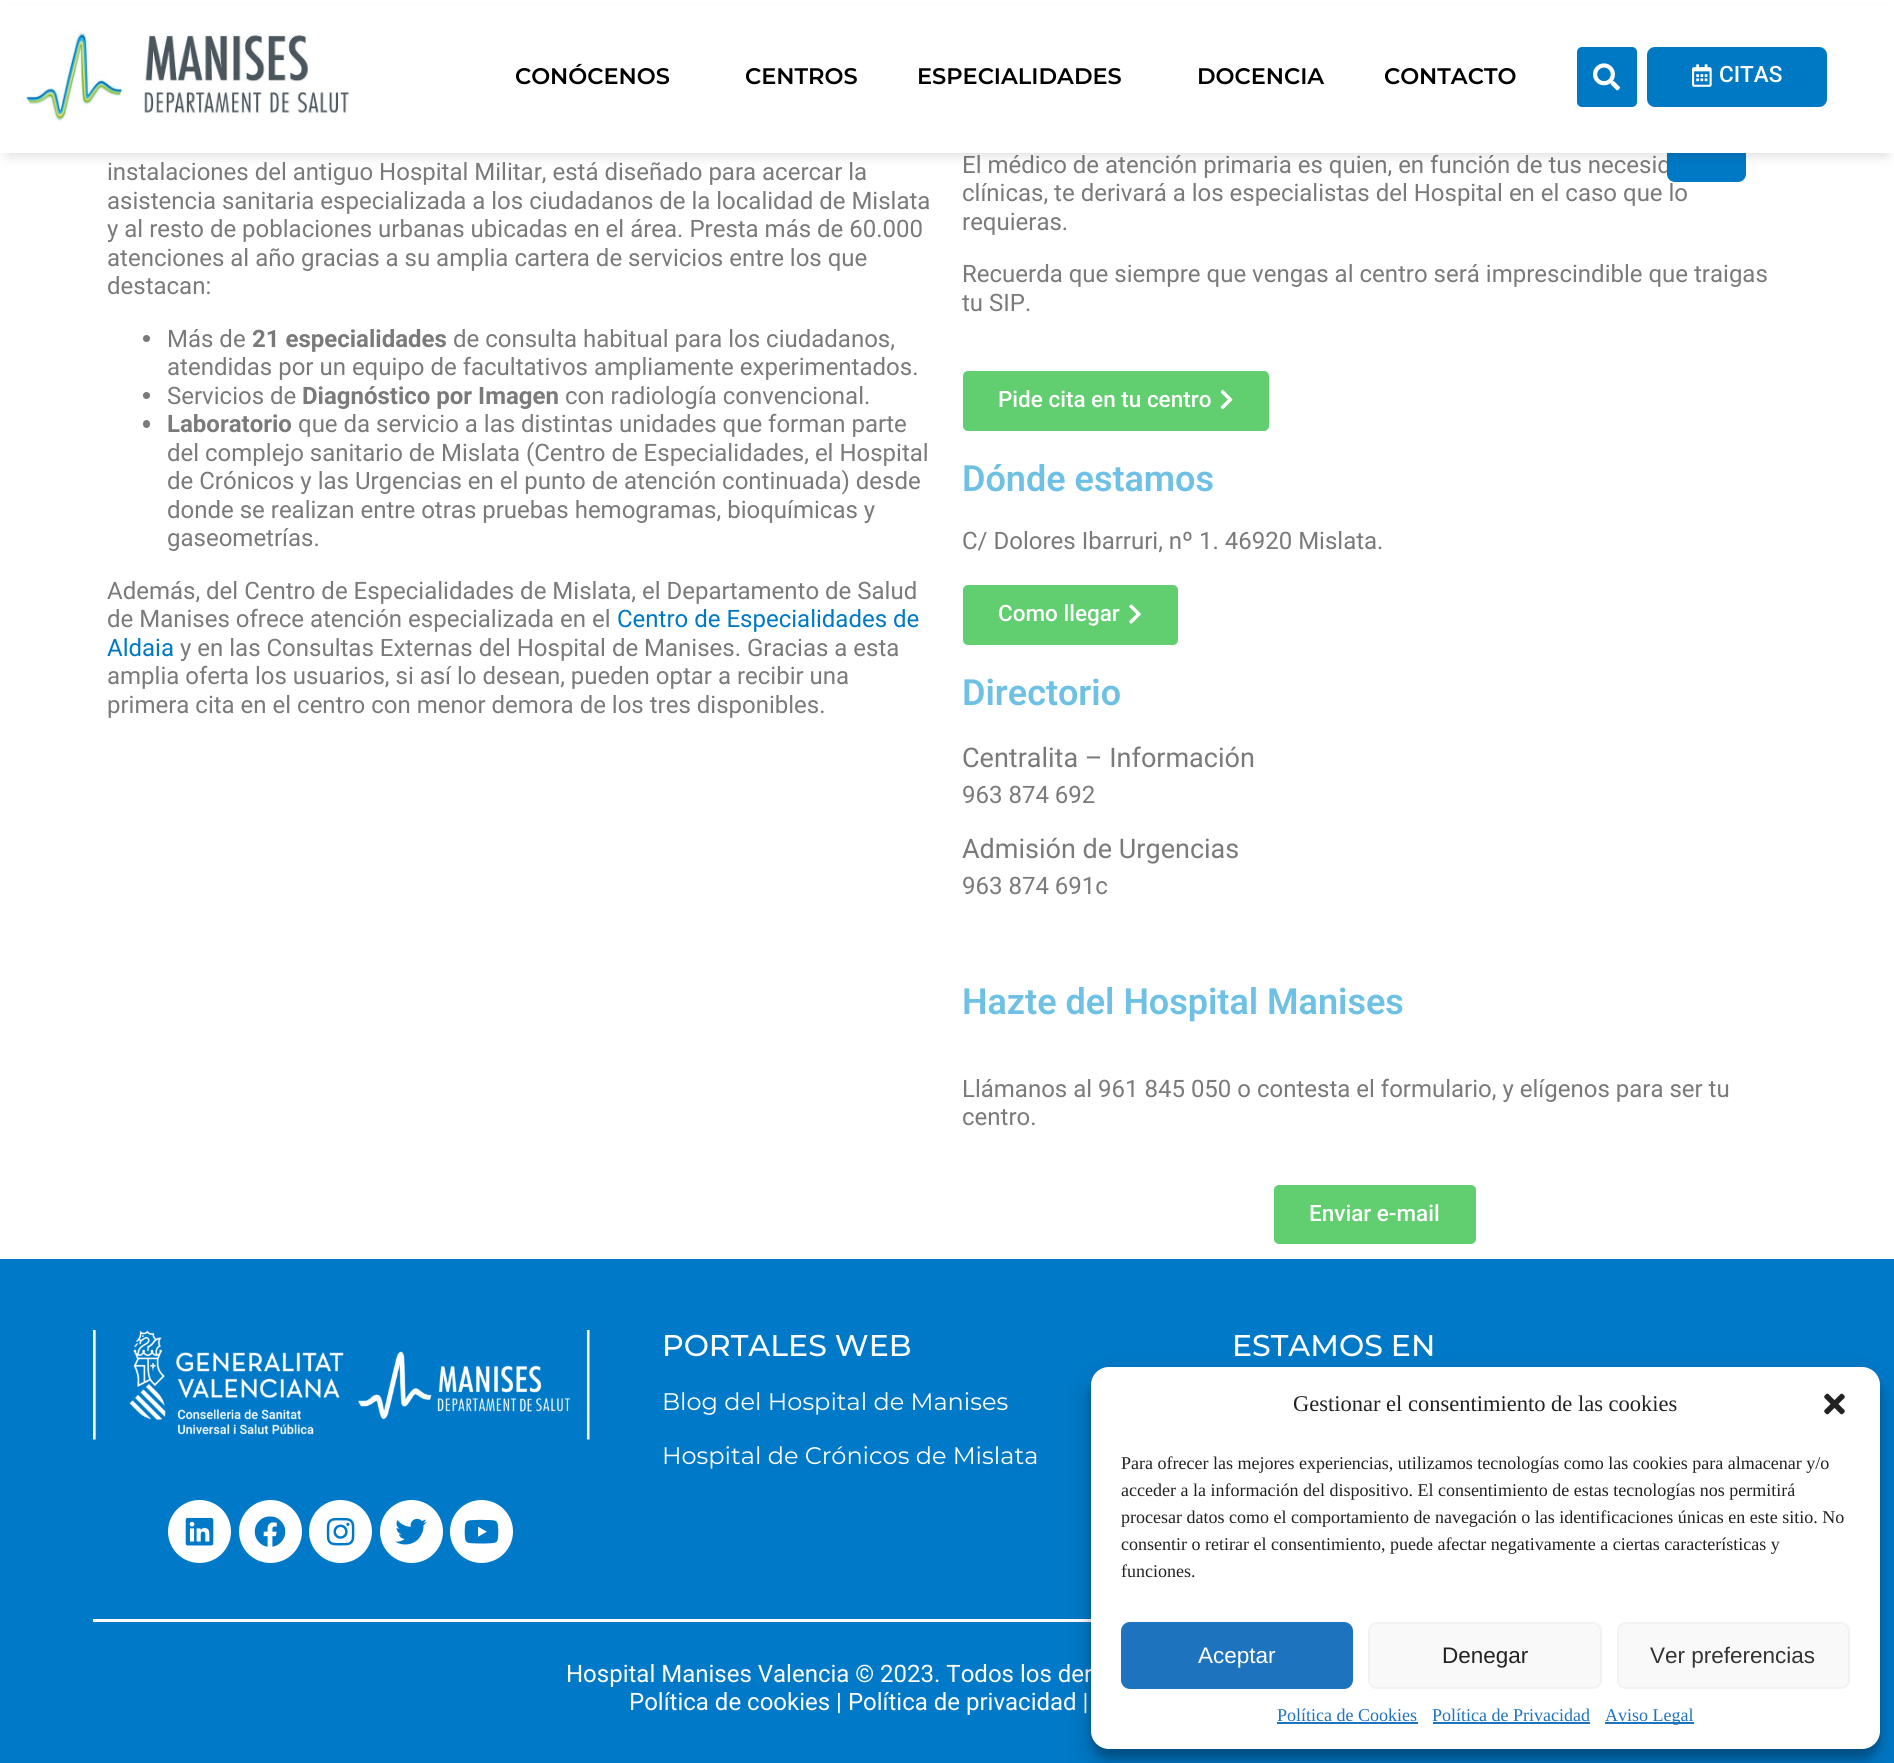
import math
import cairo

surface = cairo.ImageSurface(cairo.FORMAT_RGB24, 1894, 1763)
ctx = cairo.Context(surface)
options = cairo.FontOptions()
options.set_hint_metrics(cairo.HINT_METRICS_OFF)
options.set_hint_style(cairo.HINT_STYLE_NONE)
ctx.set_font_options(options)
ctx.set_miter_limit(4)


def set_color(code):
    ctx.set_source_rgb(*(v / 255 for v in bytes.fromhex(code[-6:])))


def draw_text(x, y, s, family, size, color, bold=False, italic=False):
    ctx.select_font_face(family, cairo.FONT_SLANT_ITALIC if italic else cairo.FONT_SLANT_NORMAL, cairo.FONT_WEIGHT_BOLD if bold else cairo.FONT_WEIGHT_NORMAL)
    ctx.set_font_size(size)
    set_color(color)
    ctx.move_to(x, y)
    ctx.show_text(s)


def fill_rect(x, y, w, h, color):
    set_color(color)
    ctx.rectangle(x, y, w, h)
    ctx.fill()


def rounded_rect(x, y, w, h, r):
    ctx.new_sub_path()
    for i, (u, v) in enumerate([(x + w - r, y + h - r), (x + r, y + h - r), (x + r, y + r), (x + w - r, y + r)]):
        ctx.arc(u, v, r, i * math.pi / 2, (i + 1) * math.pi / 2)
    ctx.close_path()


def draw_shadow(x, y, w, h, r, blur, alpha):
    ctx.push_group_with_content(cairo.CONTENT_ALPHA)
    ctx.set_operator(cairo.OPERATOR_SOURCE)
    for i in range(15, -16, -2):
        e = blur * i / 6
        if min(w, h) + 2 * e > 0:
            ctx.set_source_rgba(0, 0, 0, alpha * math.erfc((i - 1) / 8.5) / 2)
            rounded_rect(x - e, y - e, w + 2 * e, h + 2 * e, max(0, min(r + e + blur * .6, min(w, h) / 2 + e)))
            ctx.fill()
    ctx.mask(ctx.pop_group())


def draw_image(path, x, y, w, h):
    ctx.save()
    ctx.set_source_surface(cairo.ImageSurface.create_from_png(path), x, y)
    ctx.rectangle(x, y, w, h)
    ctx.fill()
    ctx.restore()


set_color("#ffffff")
ctx.paint()
draw_text(962, 173, "El médico de atención primaria es quien, en función de tus necesid", "Roboto", 24, "#7a7a7a")
set_color("#0079c5")
rounded_rect(1667, 146, 79, 36, 8)
ctx.fill()
set_color("#000000")
draw_shadow(9, 18, 1877, 135, 0, 7.5, 0.18)
fill_rect(0, 6, 1894, 147, "#ffffff")
draw_image("assets/img1.png", 22, 30, 328, 92)
draw_text(515, 84, "CONÓCENOS", "Montserrat SemiBold", 22.5, "#000000")
draw_text(745, 84, "CENTROS", "Montserrat SemiBold", 22.5, "#000000")
draw_text(917, 84, "ESPECIALIDADES", "Montserrat SemiBold", 22.5, "#000000")
draw_text(1197, 84, "DOCENCIA", "Montserrat SemiBold", 22.5, "#000000")
draw_text(1384, 84, "CONTACTO", "Montserrat SemiBold", 22.5, "#000000")
set_color("#0079c5")
rounded_rect(1577, 47, 60, 60, 5)
ctx.fill()
draw_image("assets/img2.png", 1593, 63, 27, 28)
rounded_rect(1647, 47, 180, 60, 8)
ctx.fill()
draw_image("assets/img3.png", 1692, 64, 20, 23)
draw_text(1719, 82, "CITAS", "Roboto Medium", 22.5, "#ffffff")
draw_text(107, 180, "instalaciones del antiguo Hospital Militar, está diseñado para acercar la", "Roboto", 24, "#7a7a7a")
draw_text(107, 209, "asistencia sanitaria especializada a los ciudadanos de la localidad de Mislata", "Roboto", 24, "#7a7a7a")
draw_text(107, 237, "y al resto de poblaciones urbanas ubicadas en el área. Presta más de 60.000", "Roboto", 24, "#7a7a7a")
draw_text(107, 266, "atenciones al año gracias a su amplia cartera de servicios entre los que", "Roboto", 24, "#7a7a7a")
draw_text(107, 294, "destacan:", "Roboto", 24, "#7a7a7a")
ctx.new_path()
ctx.arc(146.5, 338.5, 3.5, 0, 2 * math.pi)
ctx.fill()
draw_text(167, 347, "Más de", "Roboto", 24, "#7a7a7a")
draw_text(252, 347, "21 especialidades", "Roboto", 24, "#7a7a7a", bold=True)
draw_text(453, 347, "de consulta habitual para los ciudadanos,", "Roboto", 24, "#7a7a7a")
draw_text(167, 375, "atendidas por un equipo de facultativos ampliamente experimentados.", "Roboto", 24, "#7a7a7a")
ctx.new_path()
ctx.arc(146.5, 395.5, 3.5, 0, 2 * math.pi)
ctx.fill()
draw_text(167, 404, "Servicios de", "Roboto", 24, "#7a7a7a")
draw_text(302, 404, "Diagnóstico por Imagen", "Roboto", 24, "#7a7a7a", bold=True)
draw_text(565, 404, "con radiología convencional.", "Roboto", 24, "#7a7a7a")
rounded_rect(143, 420, 7, 8, 3.5)
ctx.fill()
draw_text(167, 432, "Laboratorio", "Roboto", 24, "#7a7a7a", bold=True)
draw_text(298, 432, "que da servicio a las distintas unidades que forman parte", "Roboto", 24, "#7a7a7a")
draw_text(167, 461, "del complejo sanitario de Mislata (Centro de Especialidades, el Hospital", "Roboto", 24, "#7a7a7a")
draw_text(167, 489, "de Crónicos y las Urgencias en el punto de atención continuada) desde", "Roboto", 24, "#7a7a7a")
draw_text(167, 518, "donde se realizan entre otras pruebas hemogramas, bioquímicas y", "Roboto", 24, "#7a7a7a")
draw_text(167, 546, "gaseometrías.", "Roboto", 24, "#7a7a7a")
draw_text(107, 599, "Además, del Centro de Especialidades de Mislata, el Departamento de Salud", "Roboto", 24, "#7a7a7a")
draw_text(107, 627, "de Manises ofrece atención especializada en el", "Roboto", 24, "#7a7a7a")
draw_text(617, 627, "Centro de Especialidades de", "Roboto", 24, "#0079c5")
draw_text(107, 656, "Aldaia", "Roboto", 24, "#0079c5")
draw_text(180, 656, "y en las Consultas Externas del Hospital de Manises. Gracias a esta", "Roboto", 24, "#7a7a7a")
draw_text(107, 684, "amplia oferta los usuarios, si así lo desean, pueden optar a recibir una", "Roboto", 24, "#7a7a7a")
draw_text(107, 713, "primera cita en el centro con menor demora de los tres disponibles.", "Roboto", 24, "#7a7a7a")
draw_text(962, 201, "clínicas, te derivará a los especialistas del Hospital en el caso que lo", "Roboto", 24, "#7a7a7a")
draw_text(962, 230, "requieras.", "Roboto", 24, "#7a7a7a")
draw_text(962, 282, "Recuerda que siempre que vengas al centro será imprescindible que traigas", "Roboto", 24, "#7a7a7a")
draw_text(962, 311, "tu SIP.", "Roboto", 24, "#7a7a7a")
set_color("#61ce70")
rounded_rect(963, 371, 306, 60, 5)
ctx.fill()
draw_text(998, 407, "Pide cita en tu centro", "Roboto Medium", 22.5, "#ffffff")
draw_image("assets/img4.png", 1220, 390, 13, 20)
draw_text(962, 491, "Dónde estamos", "Roboto SemiBold", 36, "#6ec1e4")
draw_text(962, 549, "C/ Dolores Ibarruri, nº 1. 46920 Mislata.", "Roboto", 24, "#7a7a7a")
set_color("#61ce70")
rounded_rect(963, 585, 215, 60, 5)
ctx.fill()
draw_text(998, 621, "Como llegar", "Roboto Medium", 22.5, "#ffffff")
draw_image("assets/img5.png", 1129, 604, 12, 20)
draw_text(962, 705, "Directorio", "Roboto SemiBold", 36, "#6ec1e4")
draw_text(962, 767, "Centralita – Información", "Roboto", 27, "#7a7a7a")
draw_text(962, 803, "963 874 692", "Roboto", 24, "#7a7a7a")
draw_text(962, 858, "Admisión de Urgencias", "Roboto", 27, "#7a7a7a")
draw_text(962, 894, "963 874 691c", "Roboto", 24, "#7a7a7a")
draw_text(962, 1014, "Hazte del Hospital Manises", "Roboto SemiBold", 36, "#6ec1e4")
draw_text(962, 1097, "Llámanos al 961 845 050 o contesta el formulario, y elígenos para ser tu", "Roboto", 24, "#7a7a7a")
draw_text(962, 1125, "centro.", "Roboto", 24, "#7a7a7a")
set_color("#61ce70")
rounded_rect(1274, 1185, 202, 59, 5)
ctx.fill()
draw_text(1309, 1221, "Enviar e-mail", "Roboto Medium", 22.5, "#ffffff")
fill_rect(0, 1259, 1894, 504, "#0079c8")
draw_image("assets/img6.png", 93, 1330, 497, 110)
set_color("#ffffff")
ctx.arc(199.5, 1531.5, 31.5, 0, 2 * math.pi)
ctx.fill()
draw_image("assets/img7.png", 185, 1517, 29, 29)
ctx.arc(270.5, 1531.5, 31.5, 0, 2 * math.pi)
ctx.fill()
draw_image("assets/img8.png", 254, 1516, 32, 31)
ctx.arc(340.5, 1531.5, 31.5, 0, 2 * math.pi)
ctx.fill()
draw_image("assets/img9.png", 326, 1517, 29, 29)
ctx.arc(411.5, 1531.5, 31.5, 0, 2 * math.pi)
ctx.fill()
draw_image("assets/img10.png", 395, 1518, 32, 27)
ctx.arc(481.5, 1531.5, 31.5, 0, 2 * math.pi)
ctx.fill()
draw_image("assets/img11.png", 464, 1519, 35, 25)
draw_text(662, 1356, "PORTALES WEB", "Montserrat Medium", 30, "#ffffff")
draw_text(662, 1410, "Blog del Hospital de Manises", "Montserrat", 24, "#ffffff")
draw_text(662, 1464, "Hospital de Crónicos de Mislata", "Montserrat", 24, "#ffffff")
draw_text(1232, 1356, "ESTAMOS EN", "Montserrat Medium", 30, "#ffffff")
fill_rect(93, 1619, 998, 3, "#ffffff")
draw_text(566, 1682, "Hospital Manises Valencia © 2023. Todos los der", "Roboto", 24, "#ffffff")
draw_text(629, 1710, "Política de cookies | Política de privacidad |", "Roboto", 24, "#ffffff")
set_color("#000000")
draw_shadow(1091, 1376, 789, 382, 18, 4.5, 0.23)
draw_shadow(1091, 1382, 789, 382, 18, 15, 0.19)
set_color("#ffffff")
rounded_rect(1091, 1367, 789, 382, 18)
ctx.fill()
draw_text(1293, 1411, "Gestionar el consentimiento de las cookies", "Liberation Serif", 22.5, "#222222")
draw_image("assets/img12.png", 1824, 1393, 21, 22)
draw_text(1121, 1469, "Para ofrecer las mejores experiencias, utilizamos tecnologías como las cookies para almacenar y/o", "Liberation Serif", 18, "#222222")
draw_text(1121, 1496, "acceder a la información del dispositivo. El consentimiento de estas tecnologías nos permitirá", "Liberation Serif", 18, "#222222")
draw_text(1121, 1523, "procesar datos como el comportamiento de navegación o las identificaciones únicas en este sitio. No", "Liberation Serif", 18, "#222222")
draw_text(1121, 1550, "consentir o retirar el consentimiento, puede afectar negativamente a ciertas características y", "Liberation Serif", 18, "#222222")
draw_text(1121, 1577, "funciones.", "Liberation Serif", 18, "#222222")
set_color("#1e73be")
rounded_rect(1122, 1623, 230, 65, 8)
ctx.fill_preserve()
ctx.stroke()
draw_text(1198, 1663, "Aceptar", "Liberation Sans", 22.5, "#ffffff")
set_color("#f9f9f9")
rounded_rect(1369, 1623, 232, 65, 8)
ctx.fill_preserve()
set_color("#f2f2f2")
ctx.stroke()
draw_text(1442, 1663, "Denegar", "Liberation Sans", 22.5, "#222222")
set_color("#f9f9f9")
rounded_rect(1618, 1623, 231, 65, 8)
ctx.fill_preserve()
set_color("#f2f2f2")
ctx.stroke()
draw_text(1650, 1663, "Ver preferencias", "Liberation Sans", 22.5, "#333333")
draw_text(1277, 1721, "Política de Cookies", "Liberation Serif", 18, "#1e73be")
fill_rect(1277, 1722, 141, 2, "#1e73be")
draw_text(1432, 1721, "Política de Privacidad", "Liberation Serif", 18, "#1e73be")
fill_rect(1433, 1722, 157, 2, "#1e73be")
fill_rect(1605, 1722, 89, 2, "#1e73be")
draw_text(1605, 1721, "Aviso Legal", "Liberation Serif", 18, "#1e73be")
surface.write_to_png("output.png")
